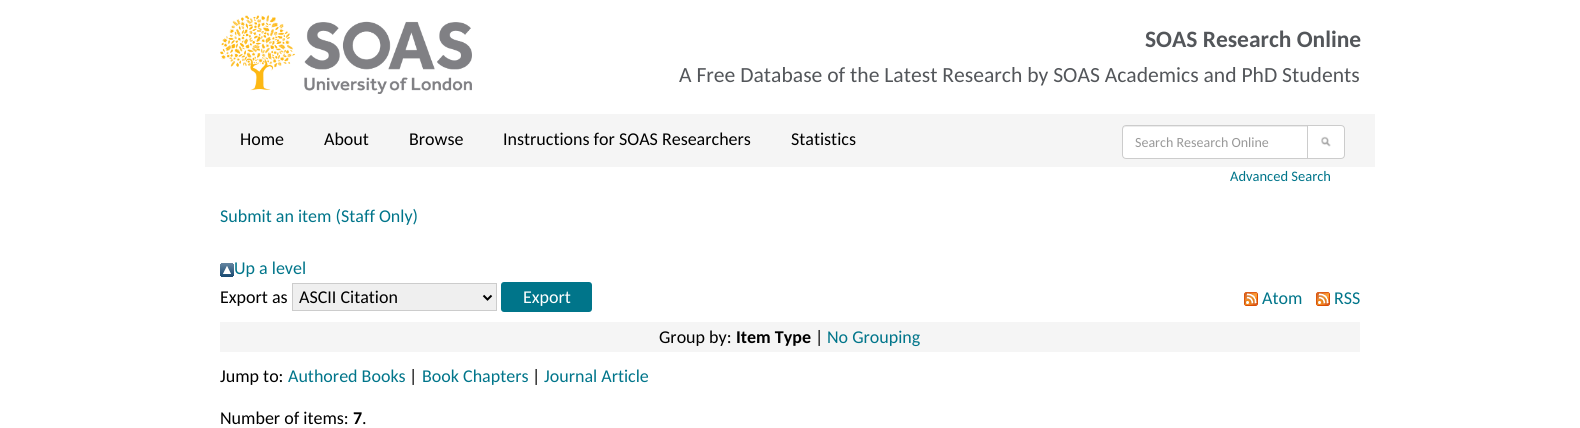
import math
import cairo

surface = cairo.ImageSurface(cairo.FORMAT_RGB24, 1580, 428)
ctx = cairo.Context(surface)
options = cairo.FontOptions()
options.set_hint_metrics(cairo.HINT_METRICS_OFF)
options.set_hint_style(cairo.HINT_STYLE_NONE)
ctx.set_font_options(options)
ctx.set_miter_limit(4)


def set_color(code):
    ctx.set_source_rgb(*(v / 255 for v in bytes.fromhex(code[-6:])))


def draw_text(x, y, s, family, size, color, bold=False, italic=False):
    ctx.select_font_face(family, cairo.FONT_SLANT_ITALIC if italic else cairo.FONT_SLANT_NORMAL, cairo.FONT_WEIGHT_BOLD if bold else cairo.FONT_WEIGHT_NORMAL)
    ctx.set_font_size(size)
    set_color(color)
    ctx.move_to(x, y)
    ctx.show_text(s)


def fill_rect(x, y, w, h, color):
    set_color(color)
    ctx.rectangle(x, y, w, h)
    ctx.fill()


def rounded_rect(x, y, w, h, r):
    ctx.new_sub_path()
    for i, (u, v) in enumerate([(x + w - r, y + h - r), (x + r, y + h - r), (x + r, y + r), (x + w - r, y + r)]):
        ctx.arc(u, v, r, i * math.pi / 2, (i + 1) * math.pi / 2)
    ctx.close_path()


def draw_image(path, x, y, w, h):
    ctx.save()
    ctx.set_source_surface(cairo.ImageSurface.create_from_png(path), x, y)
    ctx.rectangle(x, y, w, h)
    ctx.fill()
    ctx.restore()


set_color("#ffffff")
ctx.paint()
draw_image("assets/img1.png", 220, 15, 252, 79)
draw_text(1145, 47, "SOAS Research Online", "Carlito", 23.5, "#53565a", bold=True)
draw_text(679, 82, "A Free Database of the Latest Research by SOAS Academics and PhD Students", "Carlito", 21.6, "#53565a")
fill_rect(205, 114, 1170, 53, "#f5f5f5")
draw_text(240, 145, "Home", "Carlito", 18, "#000000")
draw_text(324, 145, "About", "Carlito", 18, "#000000")
draw_text(409, 145, "Browse", "Carlito", 18, "#000000")
draw_text(503, 145, "Instructions for SOAS Researchers", "Carlito", 18, "#000000")
draw_text(791, 145, "Statistics", "Carlito", 18, "#000000")
set_color("#ffffff")
ctx.new_path()
ctx.move_to(1126, 125)
ctx.line_to(1308, 125)
ctx.line_to(1308, 159)
ctx.line_to(1126, 159)
ctx.curve_to(1124, 159, 1122, 157, 1122, 155)
ctx.line_to(1122, 129)
ctx.curve_to(1122, 127, 1124, 125, 1126, 125)
ctx.close_path()
ctx.fill()
set_color("#ececec")
ctx.new_path()
ctx.move_to(1126, 127)
ctx.line_to(1307, 127)
ctx.line_to(1307, 126)
ctx.line_to(1125, 126)
ctx.curve_to(1123, 127, 1123, 128, 1123, 130)
ctx.curve_to(1123, 128, 1124, 127, 1126, 127)
ctx.close_path()
ctx.fill()
ctx.new_path()
ctx.move_to(1126, 125.5)
ctx.line_to(1307.5, 125.5)
ctx.line_to(1307.5, 158.5)
ctx.line_to(1126, 158.5)
ctx.curve_to(1124, 158.5, 1122.5, 157, 1122.5, 155)
ctx.line_to(1122.5, 129)
ctx.curve_to(1122.5, 127, 1124, 125.5, 1126, 125.5)
ctx.close_path()
set_color("#cccccc")
ctx.set_line_width(1)
ctx.stroke()
draw_text(1135, 147, "Search Research Online", "Carlito", 14, "#999999")
set_color("#ffffff")
ctx.new_path()
ctx.move_to(1307.5, 125.5)
ctx.line_to(1341, 125.5)
ctx.curve_to(1343, 125.5, 1344.5, 127, 1344.5, 129)
ctx.line_to(1344.5, 155)
ctx.curve_to(1344.5, 157, 1343, 158.5, 1341, 158.5)
ctx.line_to(1307.5, 158.5)
ctx.close_path()
ctx.fill_preserve()
set_color("#cccccc")
ctx.stroke()
draw_image("assets/img2.png", 1321, 136, 10, 11)
draw_text(1230, 181, "Advanced Search", "Carlito", 14.5, "#00758a")
draw_text(220, 222, "Submit an item (Staff Only)", "Carlito", 18, "#00758a")
draw_image("assets/img3.png", 220, 263, 14, 14)
draw_text(234, 274, "Up a level", "Carlito", 18, "#00758a")
draw_text(220, 303, "Export as", "Carlito", 18, "#000000")
set_color("#efefef")
ctx.rectangle(292.5, 283.5, 204, 27)
ctx.fill_preserve()
set_color("#cccccc")
ctx.stroke()
ctx.new_path()
ctx.move_to(483.5, 295.5)
ctx.line_to(487.5, 299.5)
ctx.line_to(491.5, 295.5)
set_color("#000000")
ctx.set_line_width(2)
ctx.stroke()
draw_text(299, 303, "ASCII Citation", "Carlito", 18, "#000000")
set_color("#00758a")
rounded_rect(502, 283, 89, 28, 2)
ctx.fill_preserve()
ctx.stroke()
draw_text(523, 303, "Export", "Carlito", 18, "#ffffff")
draw_image("assets/img4.png", 1244, 292, 14, 14)
draw_text(1262, 304, "Atom", "Carlito", 18, "#00758a")
draw_image("assets/img4.png", 1316, 292, 14, 14)
draw_text(1334, 304, "RSS", "Carlito", 18, "#00758a")
fill_rect(220, 322, 1140, 30, "#f5f5f5")
draw_text(659, 343, "Group by:", "Carlito", 18, "#000000")
draw_text(736, 343, "Item Type", "Carlito", 18, "#000000", bold=True)
draw_text(815, 343, "|", "Carlito", 18, "#000000")
draw_text(827, 343, "No Grouping", "Carlito", 18, "#00758a")
draw_text(220, 382, "Jump to:", "Carlito", 18, "#000000")
draw_text(288, 382, "Authored Books", "Carlito", 18, "#00758a")
draw_text(409, 382, "|", "Carlito", 18, "#000000")
draw_text(422, 382, "Book Chapters", "Carlito", 18, "#00758a")
draw_text(532, 382, "|", "Carlito", 18, "#000000")
draw_text(544, 382, "Journal Article", "Carlito", 18, "#00758a")
draw_text(220, 424, "Number of items:", "Carlito", 18, "#000000")
draw_text(353, 424, "7", "Carlito", 18, "#000000", bold=True)
draw_text(362, 424, ".", "Carlito", 18, "#000000")
surface.write_to_png("output.png")
